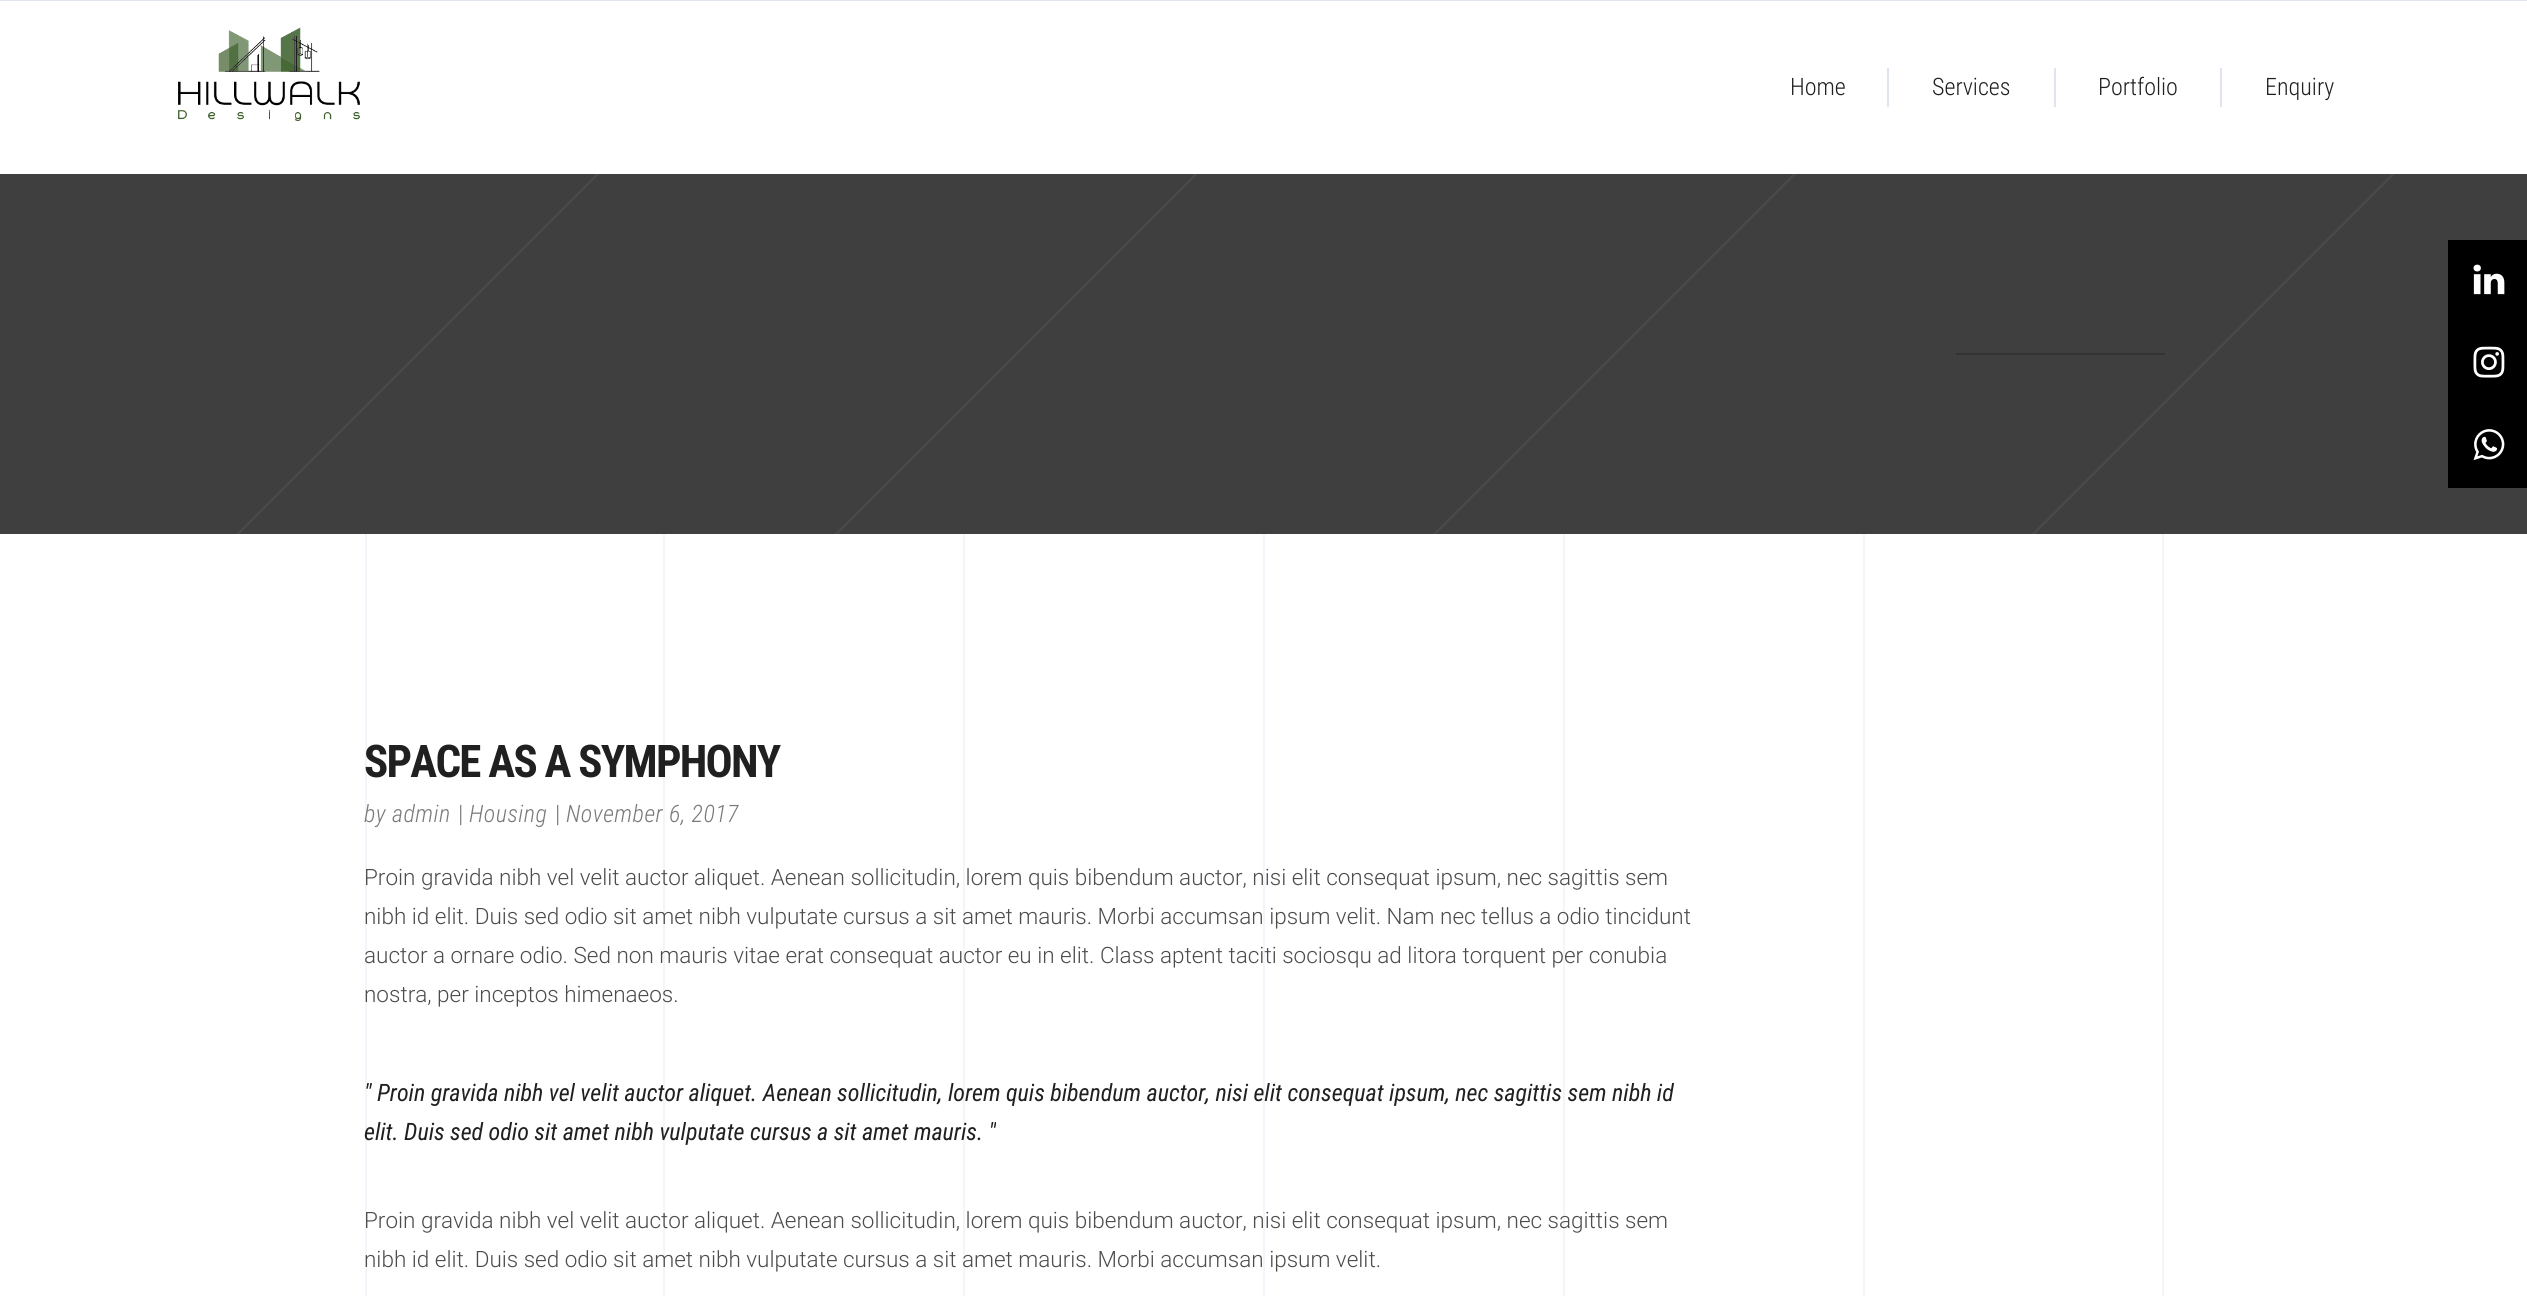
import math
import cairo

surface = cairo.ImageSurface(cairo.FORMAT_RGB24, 2527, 1296)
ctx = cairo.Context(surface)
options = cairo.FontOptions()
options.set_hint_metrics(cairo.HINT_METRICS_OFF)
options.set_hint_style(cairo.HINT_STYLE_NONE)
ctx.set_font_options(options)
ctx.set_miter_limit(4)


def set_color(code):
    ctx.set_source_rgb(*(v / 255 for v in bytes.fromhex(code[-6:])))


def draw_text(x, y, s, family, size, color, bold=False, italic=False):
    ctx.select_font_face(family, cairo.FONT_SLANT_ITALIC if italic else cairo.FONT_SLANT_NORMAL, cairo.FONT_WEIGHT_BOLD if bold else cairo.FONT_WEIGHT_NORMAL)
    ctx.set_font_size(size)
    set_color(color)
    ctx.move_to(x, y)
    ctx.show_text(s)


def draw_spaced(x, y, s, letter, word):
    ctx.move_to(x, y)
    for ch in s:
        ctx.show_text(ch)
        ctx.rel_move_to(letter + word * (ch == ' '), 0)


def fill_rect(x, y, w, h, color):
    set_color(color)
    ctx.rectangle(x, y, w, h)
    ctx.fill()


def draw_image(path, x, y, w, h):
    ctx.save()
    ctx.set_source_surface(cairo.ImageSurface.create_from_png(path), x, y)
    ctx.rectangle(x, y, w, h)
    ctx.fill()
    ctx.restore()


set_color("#ffffff")
ctx.paint()
fill_rect(0, 0, 2527, 1, "#e0e4f2")
draw_image("assets/img1.png", 178, 27, 183, 94)
draw_text(1790, 95, "Home", "Roboto Condensed Light", 24, "#202020")
fill_rect(1887, 68, 2, 39, "#e0e4f2")
draw_text(1932, 95, "Services", "Roboto Condensed Light", 24, "#202020")
fill_rect(2054, 68, 2, 39, "#e0e4f2")
draw_text(2098, 95, "Portfolio", "Roboto Condensed Light", 24, "#202020")
fill_rect(2220, 68, 2, 39, "#e0e4f2")
draw_text(2265, 95, "Enquiry", "Roboto Condensed Light", 24, "#202020")
draw_image("assets/img5.png", 0, 174, 2527, 360)
fill_rect(2448, 240, 79, 165, "#000000")
draw_image("assets/img2.png", 2473, 264, 32, 31)
draw_image("assets/img3.png", 2473, 346, 32, 32)
fill_rect(2448, 405, 79, 83, "#000000")
draw_image("assets/img4.png", 2473, 429, 32, 32)
fill_rect(1956, 353, 209, 2, "#333333")
fill_rect(365, 534, 2, 762, "#f4f5fa")
fill_rect(663, 534, 2, 762, "#f4f5fa")
fill_rect(963, 534, 2, 762, "#f4f5fa")
fill_rect(1263, 534, 2, 762, "#f4f5fa")
fill_rect(1563, 534, 2, 762, "#f4f5fa")
fill_rect(2162, 534, 2, 762, "#f4f5fa")
fill_rect(1863, 534, 2, 762, "#f4f5fa")
ctx.select_font_face("Roboto Condensed", cairo.FONT_SLANT_NORMAL, cairo.FONT_WEIGHT_BOLD)
ctx.set_font_size(45)
set_color("#202020")
draw_spaced(364, 777, "SPACE AS A SYMPHONY", -1.75, 0)
ctx.select_font_face("Roboto Condensed Light", cairo.FONT_SLANT_ITALIC)
ctx.set_font_size(24)
set_color("#787979")
draw_spaced(364, 822, "by", 0.5, 0)
draw_spaced(392, 822, "admin", 0.5, 0)
ctx.select_font_face("Roboto Condensed Light")
draw_spaced(458, 822, "|", 0.5, 0)
ctx.select_font_face("Roboto Condensed Light", cairo.FONT_SLANT_ITALIC)
draw_spaced(469, 822, "Housing", 0.5, 0)
ctx.select_font_face("Roboto Condensed Light")
draw_spaced(555, 822, "|", 0.5, 0)
ctx.select_font_face("Roboto Condensed Light", cairo.FONT_SLANT_ITALIC)
draw_spaced(566, 822, "November 6, 2017", 0.5, 0)
draw_text(364, 885, "Proin gravida nibh vel velit auctor aliquet. Aenean sollicitudin, lorem quis bibendum auctor, nisi elit consequat ipsum, nec sagittis sem", "Roboto Light", 22.5, "#4c4c4c")
draw_text(364, 924, "nibh id elit. Duis sed odio sit amet nibh vulputate cursus a sit amet mauris. Morbi accumsan ipsum velit. Nam nec tellus a odio tincidunt", "Roboto Light", 22.5, "#4c4c4c")
draw_text(364, 963, "auctor a ornare odio. Sed non mauris vitae erat consequat auctor eu in elit. Class aptent taciti sociosqu ad litora torquent per conubia", "Roboto Light", 22.5, "#4c4c4c")
draw_text(364, 1002, "nostra, per inceptos himenaeos.", "Roboto Light", 22.5, "#4c4c4c")
draw_text(364, 1101, "\" Proin gravida nibh vel velit auctor aliquet. Aenean sollicitudin, lorem quis bibendum auctor, nisi elit consequat ipsum, nec sagittis sem nibh id", "Roboto Condensed", 24, "#202020", italic=True)
draw_text(364, 1140, "elit. Duis sed odio sit amet nibh vulputate cursus a sit amet mauris. \"", "Roboto Condensed", 24, "#202020", italic=True)
draw_text(364, 1228, "Proin gravida nibh vel velit auctor aliquet. Aenean sollicitudin, lorem quis bibendum auctor, nisi elit consequat ipsum, nec sagittis sem", "Roboto Light", 22.5, "#4c4c4c")
draw_text(364, 1267, "nibh id elit. Duis sed odio sit amet nibh vulputate cursus a sit amet mauris. Morbi accumsan ipsum velit.", "Roboto Light", 22.5, "#4c4c4c")
surface.write_to_png("output.png")
